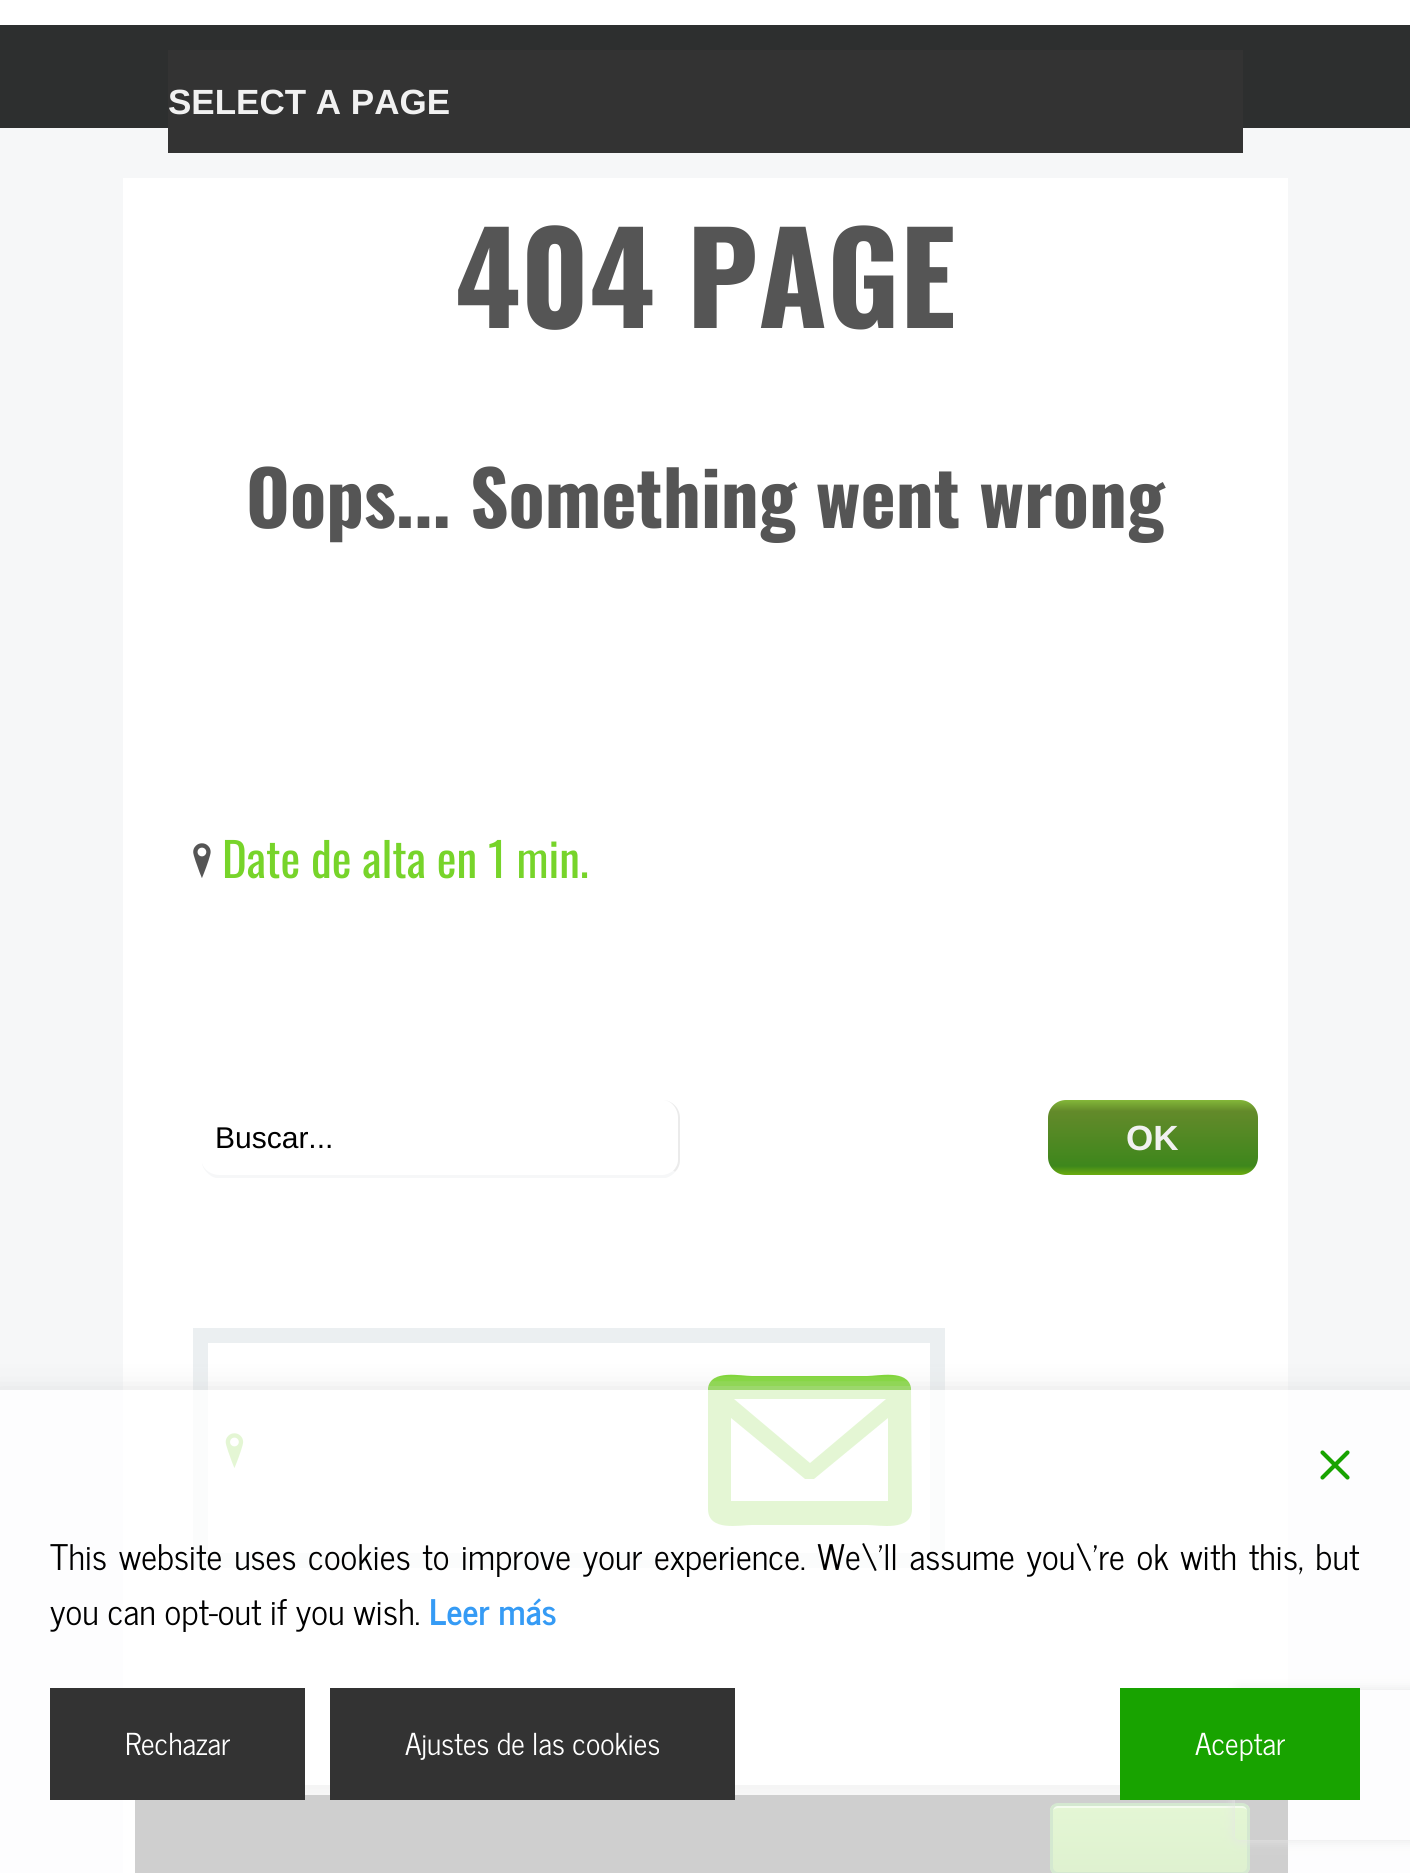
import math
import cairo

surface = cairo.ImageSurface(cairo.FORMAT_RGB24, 1410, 1873)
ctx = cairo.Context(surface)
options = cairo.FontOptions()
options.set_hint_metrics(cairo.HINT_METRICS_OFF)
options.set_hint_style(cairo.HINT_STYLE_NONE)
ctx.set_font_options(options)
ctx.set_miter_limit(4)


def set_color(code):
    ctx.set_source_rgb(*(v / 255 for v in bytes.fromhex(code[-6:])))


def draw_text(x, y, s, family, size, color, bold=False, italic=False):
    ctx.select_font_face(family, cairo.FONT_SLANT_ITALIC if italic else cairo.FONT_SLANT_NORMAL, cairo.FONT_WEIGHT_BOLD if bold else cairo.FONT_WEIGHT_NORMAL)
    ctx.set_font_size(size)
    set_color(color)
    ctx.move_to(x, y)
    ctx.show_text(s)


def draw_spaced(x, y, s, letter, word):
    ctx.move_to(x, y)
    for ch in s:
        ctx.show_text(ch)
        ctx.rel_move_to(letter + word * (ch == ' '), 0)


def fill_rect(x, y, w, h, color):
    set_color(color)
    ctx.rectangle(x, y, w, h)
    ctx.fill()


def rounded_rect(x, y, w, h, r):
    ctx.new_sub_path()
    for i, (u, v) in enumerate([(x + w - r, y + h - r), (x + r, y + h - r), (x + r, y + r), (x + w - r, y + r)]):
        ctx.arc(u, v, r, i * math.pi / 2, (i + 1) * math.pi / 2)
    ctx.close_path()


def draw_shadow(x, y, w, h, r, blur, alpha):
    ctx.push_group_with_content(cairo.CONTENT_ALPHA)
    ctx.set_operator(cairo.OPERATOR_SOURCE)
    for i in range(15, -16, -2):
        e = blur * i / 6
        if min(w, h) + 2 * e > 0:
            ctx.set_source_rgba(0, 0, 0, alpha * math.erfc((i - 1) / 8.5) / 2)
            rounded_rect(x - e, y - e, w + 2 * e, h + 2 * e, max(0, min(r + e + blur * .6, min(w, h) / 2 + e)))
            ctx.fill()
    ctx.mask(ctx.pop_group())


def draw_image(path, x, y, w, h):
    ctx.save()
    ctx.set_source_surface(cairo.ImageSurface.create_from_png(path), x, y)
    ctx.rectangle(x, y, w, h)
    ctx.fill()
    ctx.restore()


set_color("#f6f7f8")
ctx.paint()
fill_rect(0, 0, 1410, 25, "#ffffff")
fill_rect(0, 25, 1410, 103, "#2d2f2f")
fill_rect(168, 50, 1075, 103, "#333333")
draw_text(168, 114, "SELECT A PAGE", "Liberation Sans", 35, "#f1f1f1", bold=True)
fill_rect(123, 178, 1165, 1695, "#ffffff")
draw_text(455, 328, "404 PAGE", "Oswald", 125, "#555555", bold=True)
draw_text(246, 528, "Oops... Something went wrong", "Oswald", 75, "#555555", bold=True)
ctx.save()
ctx.rectangle(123, 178, 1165, 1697)
ctx.clip()
ctx.rectangle(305, 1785, 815, 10)
ctx.clip()
set_color("#cccccc")
draw_shadow(148, 763, 1190, 1035, 0, 6, 1)
ctx.restore()
draw_image("assets/img1.png", 193, 843, 18, 35)
draw_text(222, 878, "Date de alta en 1 min.", "Oswald", 47, "#77d42a")
set_color("#ebebeb")
ctx.new_path()
ctx.move_to(680, 1118)
ctx.curve_to(680, 1108, 672, 1100, 662, 1100)
ctx.curve_to(671, 1100, 678, 1108, 678, 1118)
ctx.line_to(678, 1160)
ctx.curve_to(678, 1164, 676, 1168, 673, 1171)
ctx.line_to(675, 1172)
ctx.curve_to(678, 1169, 680, 1165, 680, 1160)
ctx.close_path()
ctx.fill()
set_color("#f6f7f8")
ctx.new_path()
ctx.move_to(202, 1163)
ctx.curve_to(204, 1170, 211, 1175, 220, 1175)
ctx.line_to(662, 1175)
ctx.curve_to(666, 1175, 670, 1173, 673, 1171)
ctx.line_to(675, 1172)
ctx.curve_to(673, 1175, 669, 1177, 666, 1178)
ctx.line_to(216, 1178)
ctx.curve_to(210, 1177, 202, 1169, 202, 1163)
ctx.close_path()
ctx.fill()
draw_text(215, 1148, "Buscar...", "Liberation Sans", 30, "#000000")
gradient = cairo.LinearGradient(1048, 1100, 1048, 1175)
gradient.add_color_stop_rgba(0, 0.514, 0.718, 0.224, 1)
gradient.add_color_stop_rgba(0.15, 0.388, 0.541, 0.165, 1)
gradient.add_color_stop_rgba(0.88, 0.243, 0.529, 0.11, 1)
gradient.add_color_stop_rgba(1, 0.42, 0.675, 0.055, 1)
ctx.set_source(gradient)
rounded_rect(1048, 1100, 210, 75, 18)
ctx.fill()
draw_text(1126, 1150, "OK", "Liberation Sans", 35, "#f1f1f1", bold=True)
ctx.rectangle(200.5, 1335.5, 737, 225)
set_color("#ebeff1")
ctx.set_line_width(15)
ctx.stroke()
draw_image("assets/img2.png", 225, 1433, 19, 35)
set_color("#77d42a")
ctx.new_path()
ctx.move_to(708, 1509)
ctx.line_to(708, 1388)
ctx.curve_to(711, 1369, 741, 1376, 752, 1376)
ctx.line_to(867, 1376)
ctx.curve_to(878, 1376, 908, 1369, 911, 1388)
ctx.line_to(912, 1509)
ctx.curve_to(912, 1532, 879, 1525, 867, 1525)
ctx.line_to(752, 1525)
ctx.curve_to(740, 1525, 708, 1532, 708, 1509)
ctx.close_path()
ctx.move_to(731, 1501)
ctx.line_to(888, 1501)
ctx.line_to(888, 1418)
ctx.line_to(814, 1479)
ctx.line_to(805, 1479)
ctx.line_to(731, 1418)
ctx.close_path()
ctx.move_to(734, 1399)
ctx.line_to(810, 1463)
ctx.line_to(886, 1399)
ctx.close_path()
ctx.fill()
fill_rect(135, 1795, 1153, 78, "#111111")
ctx.save()
rounded_rect(1050, 1803, 200, 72, 8)
ctx.clip()
gradient = cairo.LinearGradient(1053, 1805, 1053, 1873)
gradient.add_color_stop_rgba(0.05, 0.467, 0.831, 0.165, 1)
gradient.add_color_stop_rgba(1, 0.361, 0.722, 0.067, 1)
ctx.set_source(gradient)
ctx.rectangle(1050, 1805, 200, 68)
ctx.fill()
ctx.restore()
set_color("#caefab")
ctx.new_path()
ctx.move_to(1058, 1808)
ctx.line_to(1242, 1808)
ctx.curve_to(1245, 1808, 1248, 1810, 1248, 1812)
ctx.line_to(1248, 1810)
ctx.curve_to(1248, 1807, 1246, 1805, 1243, 1805)
ctx.line_to(1058, 1805)
ctx.curve_to(1055, 1805, 1053, 1807, 1053, 1810)
ctx.curve_to(1054, 1809, 1056, 1808, 1058, 1808)
ctx.close_path()
ctx.fill()
rounded_rect(1051.5, 1804.5, 197, 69, 6.5)
set_color("#268a16")
ctx.set_line_width(3)
ctx.stroke()
ctx.save()
ctx.rectangle(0, 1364, 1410, 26)
ctx.clip()
set_color("#dddddd")
draw_shadow(-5, 1393, 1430, 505, 0, 14, 1)
ctx.restore()
ctx.save()
ctx.set_fill_rule(cairo.FILL_RULE_EVEN_ODD)
ctx.new_path()
ctx.move_to(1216, 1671)
ctx.line_to(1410, 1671)
ctx.line_to(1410, 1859)
ctx.line_to(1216, 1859)
ctx.close_path()
ctx.move_to(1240, 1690)
ctx.line_to(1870, 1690)
ctx.curve_to(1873, 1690, 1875, 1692, 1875, 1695)
ctx.line_to(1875, 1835)
ctx.curve_to(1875, 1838, 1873, 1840, 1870, 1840)
ctx.line_to(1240, 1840)
ctx.curve_to(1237, 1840, 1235, 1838, 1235, 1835)
ctx.line_to(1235, 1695)
ctx.curve_to(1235, 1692, 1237, 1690, 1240, 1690)
ctx.close_path()
ctx.clip()
set_color("#808080")
draw_shadow(1235, 1690, 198, 150, 5, 6, 1)
ctx.restore()
ctx.set_source_rgba(1, 1, 1, 0.8)
ctx.rectangle(0, 1390, 1410, 483)
ctx.fill()
draw_image("assets/img3.png", 1320, 1450, 30, 30)
ctx.select_font_face("News Cycle")
set_color("#000000")
draw_spaced(50, 1570, "This website uses cookies to improve your experience. We\\'ll assume you\\'re ok with this, but", 0, 2.9)
draw_text(50, 1625, "you can opt-out if you wish.", "News Cycle", 35, "#000000")
draw_text(429, 1625, "Leer más", "News Cycle", 35, "#359bf5", bold=True)
fill_rect(50, 1688, 255, 112, "#333333")
draw_text(125, 1755, "Rechazar", "News Cycle", 30, "#ffffff")
fill_rect(330, 1688, 405, 112, "#333333")
draw_text(405, 1755, "Ajustes de las cookies", "News Cycle", 30, "#ffffff")
fill_rect(1120, 1688, 240, 112, "#18a300")
draw_text(1195, 1755, "Aceptar", "News Cycle", 30, "#ffffff")
surface.write_to_png("output.png")
